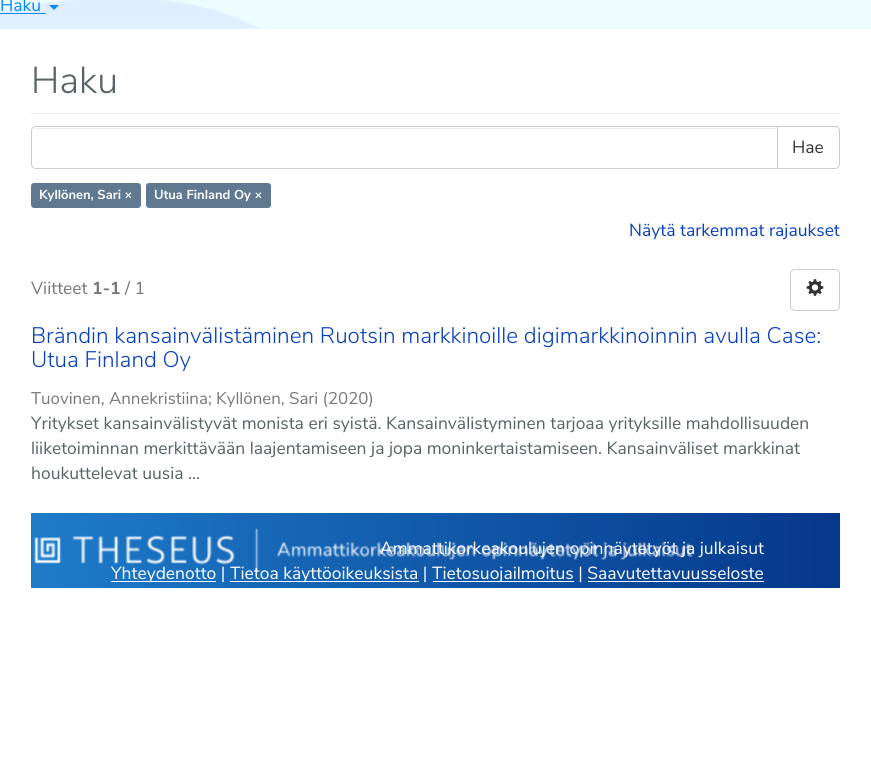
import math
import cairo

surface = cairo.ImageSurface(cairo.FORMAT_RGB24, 871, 770)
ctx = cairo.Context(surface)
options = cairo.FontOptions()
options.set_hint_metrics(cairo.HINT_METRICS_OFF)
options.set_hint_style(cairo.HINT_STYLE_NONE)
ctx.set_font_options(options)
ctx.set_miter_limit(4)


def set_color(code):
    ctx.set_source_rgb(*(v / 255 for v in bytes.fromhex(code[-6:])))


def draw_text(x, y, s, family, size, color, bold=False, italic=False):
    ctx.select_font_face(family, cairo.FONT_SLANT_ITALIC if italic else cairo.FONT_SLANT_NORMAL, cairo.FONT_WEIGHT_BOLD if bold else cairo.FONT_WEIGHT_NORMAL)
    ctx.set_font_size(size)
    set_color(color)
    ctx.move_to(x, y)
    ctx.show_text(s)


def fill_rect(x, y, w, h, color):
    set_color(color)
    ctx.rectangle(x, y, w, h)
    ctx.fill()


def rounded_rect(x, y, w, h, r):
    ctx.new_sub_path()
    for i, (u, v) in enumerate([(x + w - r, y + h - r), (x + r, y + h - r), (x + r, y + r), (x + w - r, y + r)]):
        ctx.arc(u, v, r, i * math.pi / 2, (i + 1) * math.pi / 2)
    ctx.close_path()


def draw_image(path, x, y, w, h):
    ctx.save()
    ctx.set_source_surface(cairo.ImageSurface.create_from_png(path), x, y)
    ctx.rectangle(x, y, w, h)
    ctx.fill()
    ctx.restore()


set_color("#edfcff")
ctx.paint()
draw_image("assets/img1.png", 0, 0, 260, 29)
draw_text(0, 11, "Haku", "Nunito Sans", 17.5, "#0888ff")
fill_rect(0, 13, 46, 1, "#0888ff")
ctx.new_path()
ctx.move_to(49, 5)
ctx.line_to(59, 5)
ctx.line_to(54, 10)
ctx.close_path()
ctx.fill()
fill_rect(0, 29, 871, 741, "#ffffff")
fill_rect(31, 113, 809, 1, "#eeeeee")
draw_text(31, 93, "Haku", "Nunito Sans Light", 37.5, "#586267")
ctx.new_path()
ctx.move_to(776.5, 126.5)
ctx.line_to(835, 126.5)
ctx.curve_to(837.5, 126.5, 839.5, 128.5, 839.5, 131)
ctx.line_to(839.5, 164)
ctx.curve_to(839.5, 166.5, 837.5, 168.5, 835, 168.5)
ctx.line_to(776.5, 168.5)
ctx.close_path()
set_color("#cccccc")
ctx.set_line_width(1)
ctx.stroke()
set_color("#ffffff")
ctx.new_path()
ctx.move_to(36, 126)
ctx.line_to(778, 126)
ctx.line_to(778, 169)
ctx.line_to(36, 169)
ctx.curve_to(33, 169, 31, 167, 31, 164)
ctx.line_to(31, 131)
ctx.curve_to(31, 128, 33, 126, 36, 126)
ctx.close_path()
ctx.fill()
set_color("#ececec")
ctx.new_path()
ctx.move_to(36, 129)
ctx.line_to(776, 129)
ctx.line_to(776, 128)
ctx.line_to(37, 128)
ctx.curve_to(36, 128, 35, 129, 34, 129)
ctx.close_path()
ctx.fill()
ctx.new_path()
ctx.move_to(36, 126.5)
ctx.line_to(777.5, 126.5)
ctx.line_to(777.5, 168.5)
ctx.line_to(36, 168.5)
ctx.curve_to(33.5, 168.5, 31.5, 166.5, 31.5, 164)
ctx.line_to(31.5, 131)
ctx.curve_to(31.5, 128.5, 33.5, 126.5, 36, 126.5)
ctx.close_path()
set_color("#cccccc")
ctx.stroke()
draw_text(792, 153, "Hae", "Nunito Sans", 17.5, "#333333")
set_color("#607890")
rounded_rect(31, 183, 110, 25, 3)
ctx.fill()
draw_text(39, 199, "Kyllönen, Sari ×", "Nunito Sans", 13, "#ffffff", bold=True)
set_color("#607890")
rounded_rect(146, 183, 125, 25, 3)
ctx.fill()
draw_text(154, 199, "Utua Finland Oy ×", "Nunito Sans", 13, "#ffffff", bold=True)
draw_text(629, 236, "Näytä tarkemmat rajaukset", "Nunito Sans", 17.5, "#0841bf")
draw_text(31, 294, "Viitteet", "Nunito Sans", 17.5, "#777777")
draw_text(92, 294, "1-1", "Nunito Sans", 17.5, "#777777", bold=True)
draw_text(125, 294, "/ 1", "Nunito Sans", 17.5, "#777777")
rounded_rect(790.5, 269.5, 49, 41, 4.5)
set_color("#cccccc")
ctx.stroke()
draw_image("assets/img2.png", 806, 279, 18, 17)
draw_text(31, 343, "Brändin kansainvälistäminen Ruotsin markkinoille digimarkkinoinnin avulla Case:", "Nunito Sans Light", 22.5, "#0841bf")
draw_text(31, 367, "Utua Finland Oy", "Nunito Sans Light", 22.5, "#0841bf")
draw_text(31, 404, "Tuovinen, Annekristiina; Kyllönen, Sari (2020)", "Nunito Sans", 16.9, "#777777")
draw_text(31, 429, "Yritykset kansainvälistyvät monista eri syistä. Kansainvälistyminen tarjoaa yrityksille mahdollisuuden", "Nunito Sans", 17.5, "#586267")
draw_text(31, 454, "liiketoiminnan merkittävään laajentamiseen ja jopa moninkertaistamiseen. Kansainväliset markkinat", "Nunito Sans", 17.5, "#586267")
draw_text(31, 479, "houkuttelevat uusia ...", "Nunito Sans", 17.5, "#586267")
gradient = cairo.LinearGradient(31, 550, 840, 550)
gradient.add_color_stop_rgba(0, 0.118, 0.486, 0.788, 1)
gradient.add_color_stop_rgba(1, 0.02, 0.216, 0.545, 1)
ctx.set_source(gradient)
ctx.rectangle(31, 513, 809, 75)
ctx.fill()
draw_image("assets/img3.png", 34, 528, 659, 44)
draw_text(380, 554, "Ammattikorkeakoulujen opinnäytetyöt ja julkaisut", "Nunito Sans", 17.5, "#ffffff")
fill_rect(111, 581, 105, 1, "#ffffff")
draw_text(111, 579, "Yhteydenotto |", "Nunito Sans", 17.5, "#ffffff")
fill_rect(230, 581, 189, 1, "#ffffff")
draw_text(230, 579, "Tietoa käyttöoikeuksista |", "Nunito Sans", 17.5, "#ffffff")
fill_rect(433, 581, 141, 1, "#ffffff")
draw_text(432, 579, "Tietosuojailmoitus | Saavutettavuusseloste", "Nunito Sans", 17.5, "#ffffff")
fill_rect(588, 581, 176, 1, "#ffffff")
surface.write_to_png("output.png")
